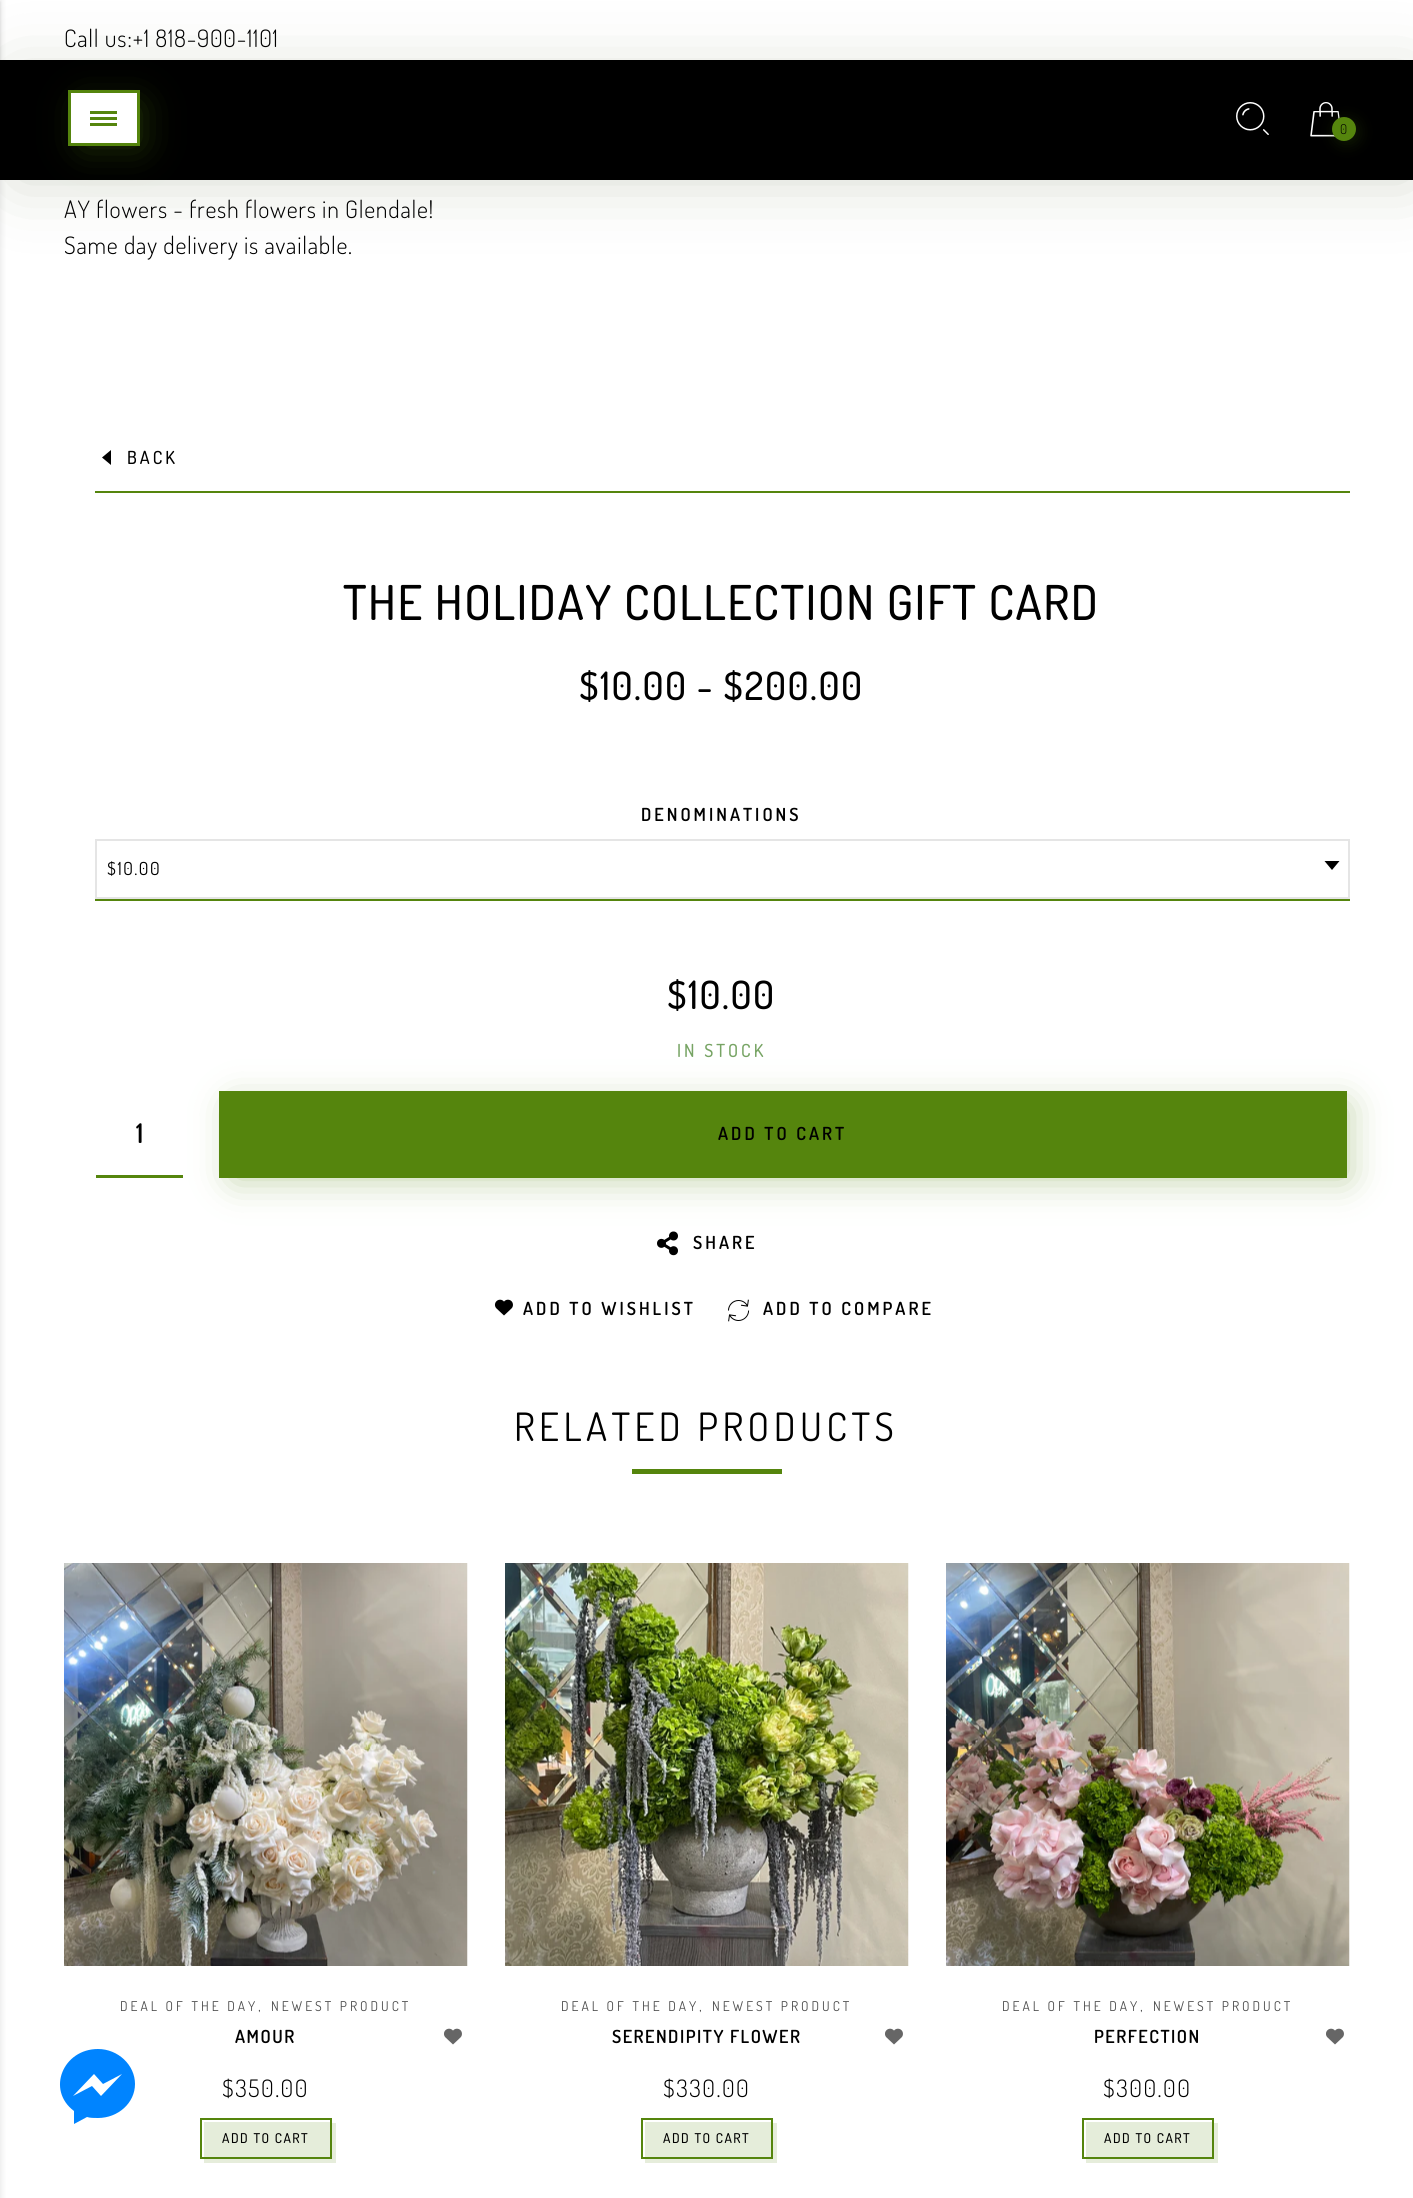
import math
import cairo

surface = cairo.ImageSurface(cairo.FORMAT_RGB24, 1413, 2198)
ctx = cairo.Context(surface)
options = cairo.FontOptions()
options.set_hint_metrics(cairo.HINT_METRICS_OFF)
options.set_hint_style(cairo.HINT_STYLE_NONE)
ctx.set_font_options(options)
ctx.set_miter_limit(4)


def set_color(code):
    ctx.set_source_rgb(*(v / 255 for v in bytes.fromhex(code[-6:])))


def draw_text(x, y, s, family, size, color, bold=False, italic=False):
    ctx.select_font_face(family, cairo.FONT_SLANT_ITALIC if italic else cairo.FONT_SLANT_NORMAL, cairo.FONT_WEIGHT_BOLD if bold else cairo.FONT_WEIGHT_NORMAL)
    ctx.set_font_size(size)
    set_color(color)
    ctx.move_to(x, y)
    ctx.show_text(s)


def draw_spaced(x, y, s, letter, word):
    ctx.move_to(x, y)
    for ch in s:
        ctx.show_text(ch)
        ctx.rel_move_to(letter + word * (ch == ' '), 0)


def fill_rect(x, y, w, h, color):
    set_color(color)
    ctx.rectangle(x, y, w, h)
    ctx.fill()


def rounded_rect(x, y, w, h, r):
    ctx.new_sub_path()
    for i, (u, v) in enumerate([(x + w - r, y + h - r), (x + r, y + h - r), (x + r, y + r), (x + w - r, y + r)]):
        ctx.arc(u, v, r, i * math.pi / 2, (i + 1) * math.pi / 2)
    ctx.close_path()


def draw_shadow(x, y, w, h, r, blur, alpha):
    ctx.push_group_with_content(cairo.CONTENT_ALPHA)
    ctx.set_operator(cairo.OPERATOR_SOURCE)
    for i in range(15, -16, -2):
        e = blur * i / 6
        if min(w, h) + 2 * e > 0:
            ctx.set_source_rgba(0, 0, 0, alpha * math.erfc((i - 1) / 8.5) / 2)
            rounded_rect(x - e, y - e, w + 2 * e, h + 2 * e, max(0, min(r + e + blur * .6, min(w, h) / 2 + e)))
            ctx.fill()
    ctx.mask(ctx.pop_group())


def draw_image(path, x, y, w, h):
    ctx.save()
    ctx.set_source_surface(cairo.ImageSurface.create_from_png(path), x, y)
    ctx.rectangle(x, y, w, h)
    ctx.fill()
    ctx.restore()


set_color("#ffffff")
ctx.paint()
set_color("#283f06")
draw_shadow(15, 75, 1398, 105, 0, 34, 0.2)
fill_rect(0, 60, 1413, 120, "#000000")
set_color("#000000")
draw_shadow(-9, -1, 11, 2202, 0, 3, 0.08)
draw_shadow(-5, 2, 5, 72, 0, 1.5, 0.12)
set_color("#0084ff")
ctx.new_path()
ctx.move_to(98, 2049)
ctx.curve_to(63, 2049, 46, 2090, 74, 2111)
ctx.line_to(74, 2124)
ctx.line_to(87, 2117)
ctx.curve_to(90, 2118, 94, 2118, 98, 2118)
ctx.curve_to(118, 2118, 135, 2103, 135, 2084)
ctx.curve_to(135, 2065, 118, 2049, 98, 2049)
ctx.close_path()
ctx.move_to(101, 2096)
ctx.line_to(92, 2086)
ctx.line_to(73, 2096)
ctx.line_to(94, 2074)
ctx.line_to(103, 2084)
ctx.line_to(122, 2074)
ctx.close_path()
ctx.fill()
ctx.select_font_face("Dosis Light")
ctx.set_font_size(24)
set_color("#000000")
draw_spaced(64, 47, "Call us:+1 818-900-1101", 0.75, 0)
draw_spaced(64, 218, "AY flowers - fresh flowers in Glendale!", 0.75, 0)
draw_spaced(64, 254, "Same day delivery is available.", 0.75, 0)
fill_rect(95, 491, 1255, 2, "#55850d")
set_color("#000000")
ctx.new_path()
ctx.move_to(111, 450)
ctx.line_to(102, 457.5)
ctx.line_to(111, 465)
ctx.close_path()
ctx.fill()
ctx.select_font_face("Dosis Medium")
ctx.set_font_size(18)
draw_spaced(127, 464, "BACK", 3, 0)
ctx.set_font_size(48)
draw_spaced(343, 620, "THE HOLIDAY COLLECTION GIFT CARD", 1.5, 0)
ctx.set_font_size(39)
draw_spaced(579, 700, "$10.00 - $200.00", 1.5, 0)
ctx.select_font_face("Dosis SemiBold")
ctx.set_font_size(18)
draw_spaced(641, 821, "DENOMINATIONS", 3, 0)
fill_rect(95, 899, 1255, 2, "#55850d")
ctx.rectangle(96, 840, 1253, 58)
set_color("#e5e5e5")
ctx.stroke()
ctx.select_font_face("Dosis")
set_color("#000000")
draw_spaced(107, 875, "$10.00", 1.5, 0)
ctx.new_path()
ctx.move_to(1324.5, 861)
ctx.line_to(1332, 870)
ctx.line_to(1339.5, 861)
ctx.close_path()
ctx.fill()
ctx.select_font_face("Dosis Medium")
ctx.set_font_size(39)
draw_spaced(667, 1009, "$10.00", 1.5, 0)
ctx.set_font_size(18)
set_color("#77a464")
draw_spaced(677, 1057, "IN STOCK", 3, 0)
fill_rect(96, 1175, 87, 3, "#55850d")
draw_text(136, 1143, "1", "Dosis SemiBold", 27, "#000000")
set_color("#55850d")
draw_shadow(234, 1106, 1113, 72, 0, 19, 0.4)
fill_rect(219, 1091, 1128, 87, "#55850d")
ctx.set_font_size(18)
set_color("#000000")
draw_spaced(718, 1140, "ADD TO CART", 3, 0)
draw_image("assets/img1.png", 657, 1231, 21, 25)
draw_spaced(693, 1249, "SHARE", 3, 0)
draw_image("assets/img2.png", 494, 1299, 19, 17)
draw_spaced(523, 1315, "ADD TO WISHLIST", 3, 0)
draw_image("assets/img3.png", 728, 1299, 22, 23)
draw_spaced(763, 1315, "ADD TO COMPARE", 3, 0)
ctx.select_font_face("Dosis")
ctx.set_font_size(39)
draw_spaced(514, 1441, "RELATED PRODUCTS", 4.5, 0)
fill_rect(632, 1469, 150, 5, "#55850d")
draw_image("assets/img4.png", 64, 1563, 404, 403)
ctx.set_font_size(13.5)
set_color("#4d4d4d")
draw_spaced(120, 2011, "DEAL OF THE DAY,", 3, 0)
draw_spaced(271, 2011, "NEWEST PRODUCT", 3, 0)
ctx.select_font_face("Dosis SemiBold")
ctx.set_font_size(18)
set_color("#000000")
draw_spaced(235, 2043, "AMOUR", 1.5, 0)
draw_image("assets/img5.png", 444, 2028, 18, 17)
ctx.select_font_face("Dosis Light")
ctx.set_font_size(24)
draw_spaced(222, 2097, "$350.00", 1.5, 0)
set_color("#e6eddb")
ctx.new_path()
ctx.move_to(204, 2158)
ctx.line_to(204, 2163)
ctx.line_to(336, 2163)
ctx.line_to(336, 2123)
ctx.line_to(332, 2123)
ctx.line_to(332, 2158)
ctx.close_path()
ctx.fill()
ctx.set_source_rgba(0.333, 0.522, 0.051, 0.15)
ctx.rectangle(204, 2122, 126, 35)
ctx.fill()
ctx.rectangle(201, 2119, 130, 39)
set_color("#55850d")
ctx.stroke()
ctx.select_font_face("Dosis Medium")
ctx.set_font_size(13.5)
set_color("#000000")
draw_spaced(222, 2143, "ADD TO CART", 1.5, 0)
draw_image("assets/img6.png", 505, 1563, 404, 403)
ctx.select_font_face("Dosis")
set_color("#4d4d4d")
draw_spaced(561, 2011, "DEAL OF THE DAY,", 3, 0)
draw_spaced(712, 2011, "NEWEST PRODUCT", 3, 0)
ctx.select_font_face("Dosis SemiBold")
ctx.set_font_size(18)
set_color("#000000")
draw_spaced(612, 2043, "SERENDIPITY FLOWER", 1.5, 0)
draw_image("assets/img5.png", 885, 2028, 18, 17)
ctx.select_font_face("Dosis Light")
ctx.set_font_size(24)
draw_spaced(663, 2097, "$330.00", 1.5, 0)
set_color("#e6eddb")
ctx.new_path()
ctx.move_to(645, 2158)
ctx.line_to(645, 2163)
ctx.line_to(777, 2163)
ctx.line_to(777, 2123)
ctx.line_to(772, 2123)
ctx.line_to(772, 2158)
ctx.close_path()
ctx.fill()
ctx.set_source_rgba(0.333, 0.522, 0.051, 0.15)
ctx.rectangle(645, 2122, 126, 35)
ctx.fill()
ctx.rectangle(642, 2119, 130, 39)
set_color("#55850d")
ctx.stroke()
ctx.select_font_face("Dosis Medium")
ctx.set_font_size(13.5)
set_color("#000000")
draw_spaced(663, 2143, "ADD TO CART", 1.5, 0)
draw_image("assets/img7.png", 946, 1563, 404, 403)
ctx.select_font_face("Dosis")
set_color("#4d4d4d")
draw_spaced(1002, 2011, "DEAL OF THE DAY,", 3, 0)
draw_spaced(1153, 2011, "NEWEST PRODUCT", 3, 0)
ctx.select_font_face("Dosis SemiBold")
ctx.set_font_size(18)
set_color("#000000")
draw_spaced(1094, 2043, "PERFECTION", 1.5, 0)
draw_image("assets/img5.png", 1326, 2028, 18, 17)
ctx.select_font_face("Dosis Light")
ctx.set_font_size(24)
draw_spaced(1103, 2097, "$300.00", 1.5, 0)
set_color("#e6eddb")
ctx.new_path()
ctx.move_to(1086, 2158)
ctx.line_to(1086, 2163)
ctx.line_to(1218, 2163)
ctx.line_to(1218, 2123)
ctx.line_to(1214, 2123)
ctx.line_to(1214, 2158)
ctx.close_path()
ctx.fill()
ctx.set_source_rgba(0.333, 0.522, 0.051, 0.15)
ctx.rectangle(1086, 2122, 126, 35)
ctx.fill()
ctx.rectangle(1083, 2119, 130, 39)
set_color("#55850d")
ctx.stroke()
ctx.select_font_face("Dosis Medium")
ctx.set_font_size(13.5)
set_color("#000000")
draw_spaced(1104, 2143, "ADD TO CART", 1.5, 0)
set_color("#55850d")
draw_shadow(83, 105, 57, 41, 0, 19, 0.4)
set_color("#ffffff")
ctx.rectangle(69.5, 91.5, 69, 53)
ctx.fill_preserve()
set_color("#55850d")
ctx.set_line_width(3)
ctx.stroke()
fill_rect(90, 117, 27, 3, "#55850d")
fill_rect(90, 111, 27, 3, "#55850d")
fill_rect(90, 123, 27, 3, "#55850d")
draw_image("assets/img8.png", 1236, 102, 33, 33)
draw_image("assets/img9.png", 1310, 102, 30, 35)
set_color("#283f06")
draw_shadow(1335, 120, 24, 24, 12, 7.5, 0.4)
set_color("#55850d")
ctx.arc(1344, 129, 12, 0, 2 * math.pi)
ctx.fill()
ctx.select_font_face("Dosis Light")
set_color("#000000")
draw_spaced(1340, 134, "0", 0.75, 0)
surface.write_to_png("output.png")
